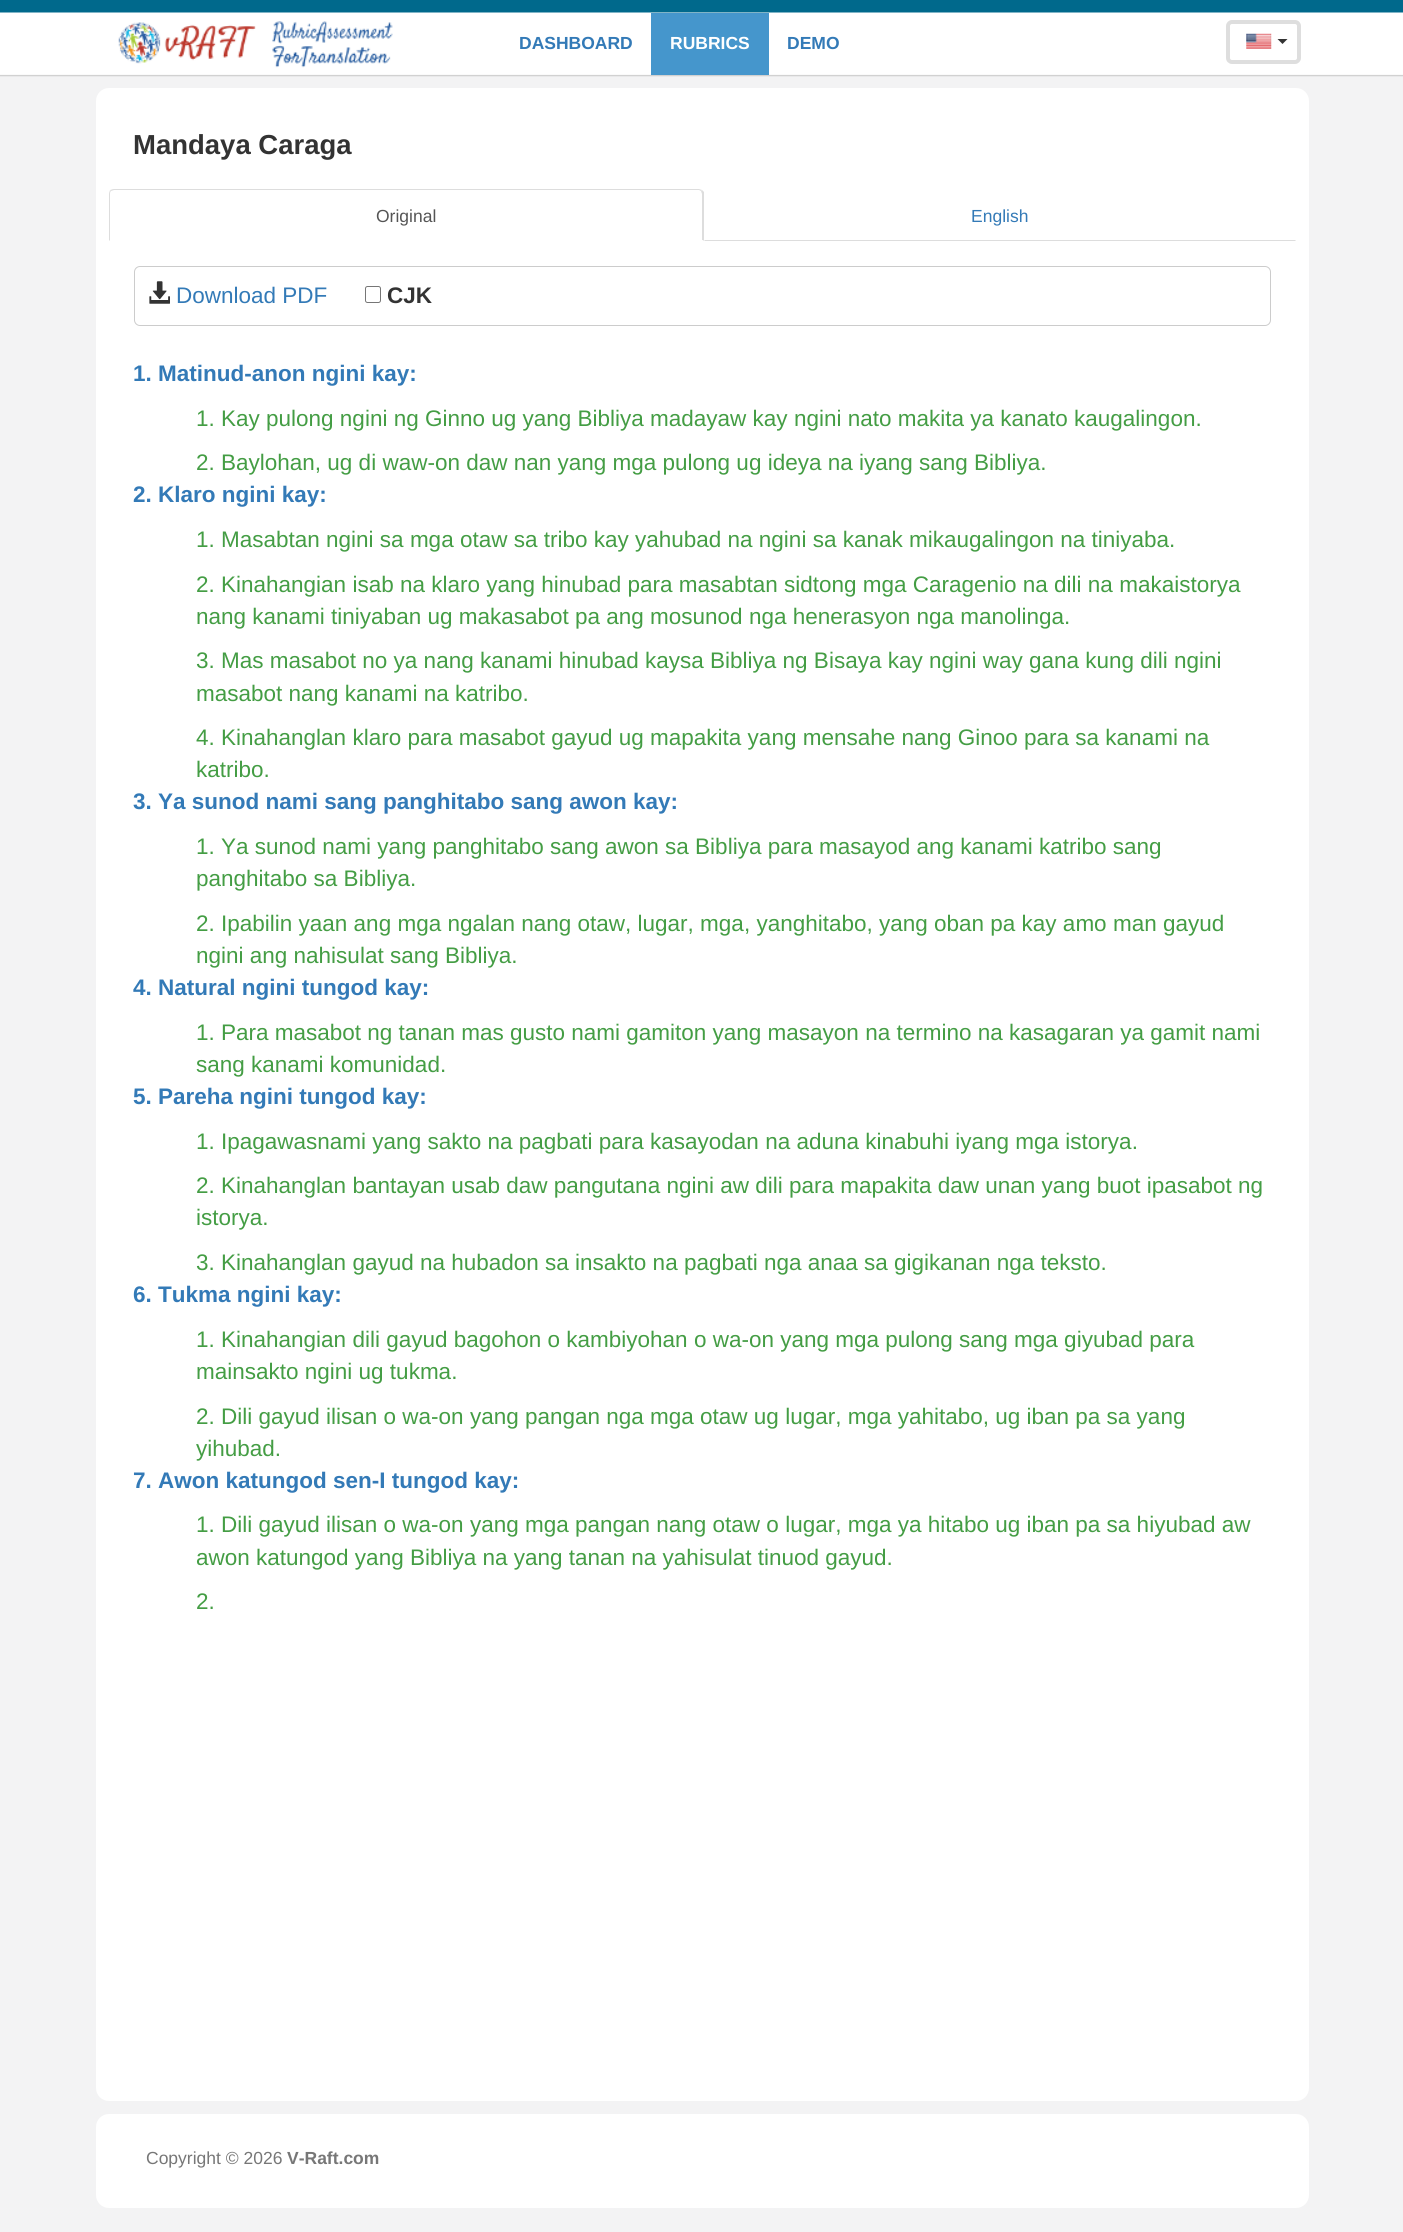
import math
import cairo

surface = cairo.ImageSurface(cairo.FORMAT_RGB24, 1403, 2232)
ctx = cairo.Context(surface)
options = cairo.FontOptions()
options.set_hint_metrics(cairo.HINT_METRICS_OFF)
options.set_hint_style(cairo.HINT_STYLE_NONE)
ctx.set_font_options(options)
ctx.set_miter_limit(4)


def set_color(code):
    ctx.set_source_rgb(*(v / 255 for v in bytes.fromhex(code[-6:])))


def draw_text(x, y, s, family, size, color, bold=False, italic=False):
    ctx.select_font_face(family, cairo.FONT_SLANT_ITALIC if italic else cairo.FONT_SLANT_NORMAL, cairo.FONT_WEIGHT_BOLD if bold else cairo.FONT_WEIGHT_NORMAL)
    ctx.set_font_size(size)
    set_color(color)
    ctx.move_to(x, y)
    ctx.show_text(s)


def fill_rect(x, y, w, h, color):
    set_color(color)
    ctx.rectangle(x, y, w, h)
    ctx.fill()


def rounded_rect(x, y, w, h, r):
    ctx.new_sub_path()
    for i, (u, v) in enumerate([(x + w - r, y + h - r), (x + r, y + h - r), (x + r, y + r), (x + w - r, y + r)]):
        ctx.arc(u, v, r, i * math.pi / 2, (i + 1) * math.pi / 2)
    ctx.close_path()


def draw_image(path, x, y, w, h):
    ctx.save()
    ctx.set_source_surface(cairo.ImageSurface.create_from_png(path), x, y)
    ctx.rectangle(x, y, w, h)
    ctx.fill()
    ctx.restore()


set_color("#f3f3f4")
ctx.paint()
draw_image("assets/img1.png", 0, 0, 1403, 77)
draw_image("assets/img2.png", 118, 21, 275, 47)
draw_text(519, 49, "DASHBOARD", "Liberation Sans", 17.5, "#337ab7", bold=True)
fill_rect(651, 13, 118, 62, "#4596cc")
draw_text(670, 49, "RUBRICS", "Liberation Sans", 17.5, "#ffffff", bold=True)
draw_text(787, 49, "DEMO", "Liberation Sans", 17.5, "#337ab7", bold=True)
rounded_rect(1228, 22, 71, 40, 4)
set_color("#dedede")
ctx.set_line_width(4)
ctx.stroke()
draw_image("assets/img3.png", 1246, 33, 26, 16)
set_color("#333333")
ctx.new_path()
ctx.move_to(1277.5, 39)
ctx.line_to(1287.5, 39)
ctx.line_to(1282.5, 44)
ctx.close_path()
ctx.fill()
set_color("#ffffff")
rounded_rect(96, 88, 1213, 2013, 13)
ctx.fill()
draw_text(133, 154, "Mandaya Caraga", "Liberation Sans", 27.5, "#333333", bold=True)
set_color("#dddddd")
ctx.new_path()
ctx.move_to(114, 189)
ctx.curve_to(112, 189, 111, 190, 110, 190)
ctx.line_to(111, 191)
ctx.line_to(114, 190)
ctx.line_to(699, 190)
ctx.line_to(701, 191)
ctx.line_to(702, 190)
ctx.line_to(699, 189)
ctx.close_path()
ctx.fill()
ctx.new_path()
ctx.move_to(702, 190)
ctx.line_to(704, 192)
ctx.line_to(704, 241)
ctx.line_to(702, 240)
ctx.line_to(702, 194)
ctx.line_to(701, 191)
ctx.close_path()
ctx.fill()
set_color("#ffffff")
ctx.new_path()
ctx.move_to(704, 241)
ctx.line_to(109, 241)
ctx.line_to(110, 240)
ctx.line_to(702, 240)
ctx.close_path()
ctx.fill()
set_color("#dddddd")
ctx.new_path()
ctx.move_to(110, 190)
ctx.curve_to(110, 191, 109, 192, 109, 194)
ctx.line_to(109, 241)
ctx.line_to(110, 240)
ctx.line_to(110, 194)
ctx.curve_to(110, 193, 110, 192, 111, 191)
ctx.close_path()
ctx.fill()
draw_text(376, 222, "Original", "Liberation Sans", 17.5, "#555555")
set_color("#dddddd")
ctx.new_path()
ctx.move_to(1296, 241)
ctx.line_to(1295, 240)
ctx.line_to(705, 240)
ctx.line_to(704, 241)
ctx.close_path()
ctx.fill()
draw_text(971, 222, "English", "Liberation Sans", 17.5, "#337ab7")
rounded_rect(134.5, 266.5, 1136, 59, 5.5)
set_color("#cccccc")
ctx.set_line_width(1)
ctx.stroke()
draw_image("assets/img4.png", 149, 281, 21, 23)
draw_text(176, 303, "Download PDF", "Liberation Sans", 22.5, "#337ab7")
rounded_rect(365.5, 286.5, 15, 16, 2)
set_color("#767676")
ctx.stroke()
draw_text(387, 303, "CJK", "Liberation Sans", 22.5, "#333333", bold=True)
draw_text(133, 381, "1. Matinud-anon ngini kay:", "Liberation Sans", 22.5, "#337ab7", bold=True)
draw_text(196, 426, "1. Kay pulong ngini ng Ginno ug yang Bibliya madayaw kay ngini nato makita ya kanato kaugalingon.", "Liberation Sans", 22.5, "#449d44")
draw_text(196, 470, "2. Baylohan, ug di waw-on daw nan yang mga pulong ug ideya na iyang sang Bibliya.", "Liberation Sans", 22.5, "#449d44")
draw_text(133, 502, "2. Klaro ngini kay:", "Liberation Sans", 22.5, "#337ab7", bold=True)
draw_text(196, 547, "1. Masabtan ngini sa mga otaw sa tribo kay yahubad na ngini sa kanak mikaugalingon na tiniyaba.", "Liberation Sans", 22.5, "#449d44")
draw_text(196, 592, "2. Kinahangian isab na klaro yang hinubad para masabtan sidtong mga Caragenio na dili na makaistorya", "Liberation Sans", 22.5, "#449d44")
draw_text(196, 624, "nang kanami tiniyaban ug makasabot pa ang mosunod nga henerasyon nga manolinga.", "Liberation Sans", 22.5, "#449d44")
draw_text(196, 668, "3. Mas masabot no ya nang kanami hinubad kaysa Bibliya ng Bisaya kay ngini way gana kung dili ngini", "Liberation Sans", 22.5, "#449d44")
draw_text(196, 701, "masabot nang kanami na katribo.", "Liberation Sans", 22.5, "#449d44")
draw_text(196, 745, "4. Kinahanglan klaro para masabot gayud ug mapakita yang mensahe nang Ginoo para sa kanami na", "Liberation Sans", 22.5, "#449d44")
draw_text(196, 777, "katribo.", "Liberation Sans", 22.5, "#449d44")
draw_text(133, 809, "3. Ya sunod nami sang panghitabo sang awon kay:", "Liberation Sans", 22.5, "#337ab7", bold=True)
draw_text(196, 854, "1. Ya sunod nami yang panghitabo sang awon sa Bibliya para masayod ang kanami katribo sang", "Liberation Sans", 22.5, "#449d44")
draw_text(196, 886, "panghitabo sa Bibliya.", "Liberation Sans", 22.5, "#449d44")
draw_text(196, 931, "2. Ipabilin yaan ang mga ngalan nang otaw, lugar, mga, yanghitabo, yang oban pa kay amo man gayud", "Liberation Sans", 22.5, "#449d44")
draw_text(196, 963, "ngini ang nahisulat sang Bibliya.", "Liberation Sans", 22.5, "#449d44")
draw_text(133, 995, "4. Natural ngini tungod kay:", "Liberation Sans", 22.5, "#337ab7", bold=True)
draw_text(196, 1040, "1. Para masabot ng tanan mas gusto nami gamiton yang masayon na termino na kasagaran ya gamit nami", "Liberation Sans", 22.5, "#449d44")
draw_text(196, 1072, "sang kanami komunidad.", "Liberation Sans", 22.5, "#449d44")
draw_text(133, 1104, "5. Pareha ngini tungod kay:", "Liberation Sans", 22.5, "#337ab7", bold=True)
draw_text(196, 1149, "1. Ipagawasnami yang sakto na pagbati para kasayodan na aduna kinabuhi iyang mga istorya.", "Liberation Sans", 22.5, "#449d44")
draw_text(196, 1193, "2. Kinahanglan bantayan usab daw pangutana ngini aw dili para mapakita daw unan yang buot ipasabot ng", "Liberation Sans", 22.5, "#449d44")
draw_text(196, 1225, "istorya.", "Liberation Sans", 22.5, "#449d44")
draw_text(196, 1270, "3. Kinahanglan gayud na hubadon sa insakto na pagbati nga anaa sa gigikanan nga teksto.", "Liberation Sans", 22.5, "#449d44")
draw_text(133, 1302, "6. Tukma ngini kay:", "Liberation Sans", 22.5, "#337ab7", bold=True)
draw_text(196, 1347, "1. Kinahangian dili gayud bagohon o kambiyohan o wa-on yang mga pulong sang mga giyubad para", "Liberation Sans", 22.5, "#449d44")
draw_text(196, 1379, "mainsakto ngini ug tukma.", "Liberation Sans", 22.5, "#449d44")
draw_text(196, 1424, "2. Dili gayud ilisan o wa-on yang pangan nga mga otaw ug lugar, mga yahitabo, ug iban pa sa yang", "Liberation Sans", 22.5, "#449d44")
draw_text(196, 1456, "yihubad.", "Liberation Sans", 22.5, "#449d44")
draw_text(133, 1488, "7. Awon katungod sen-I tungod kay:", "Liberation Sans", 22.5, "#337ab7", bold=True)
draw_text(196, 1532, "1. Dili gayud ilisan o wa-on yang mga pangan nang otaw o lugar, mga ya hitabo ug iban pa sa hiyubad aw", "Liberation Sans", 22.5, "#449d44")
draw_text(196, 1565, "awon katungod yang Bibliya na yang tanan na yahisulat tinuod gayud.", "Liberation Sans", 22.5, "#449d44")
draw_text(196, 1609, "2.", "Liberation Sans", 22.5, "#449d44")
set_color("#ffffff")
rounded_rect(96, 2114, 1213, 94, 13)
ctx.fill()
draw_text(146, 2164, "Copyright © 2026", "Liberation Sans", 17.5, "#777777")
draw_text(287, 2164, "V-Raft.com", "Liberation Sans", 17.5, "#777777", bold=True)
surface.write_to_png("output.png")
